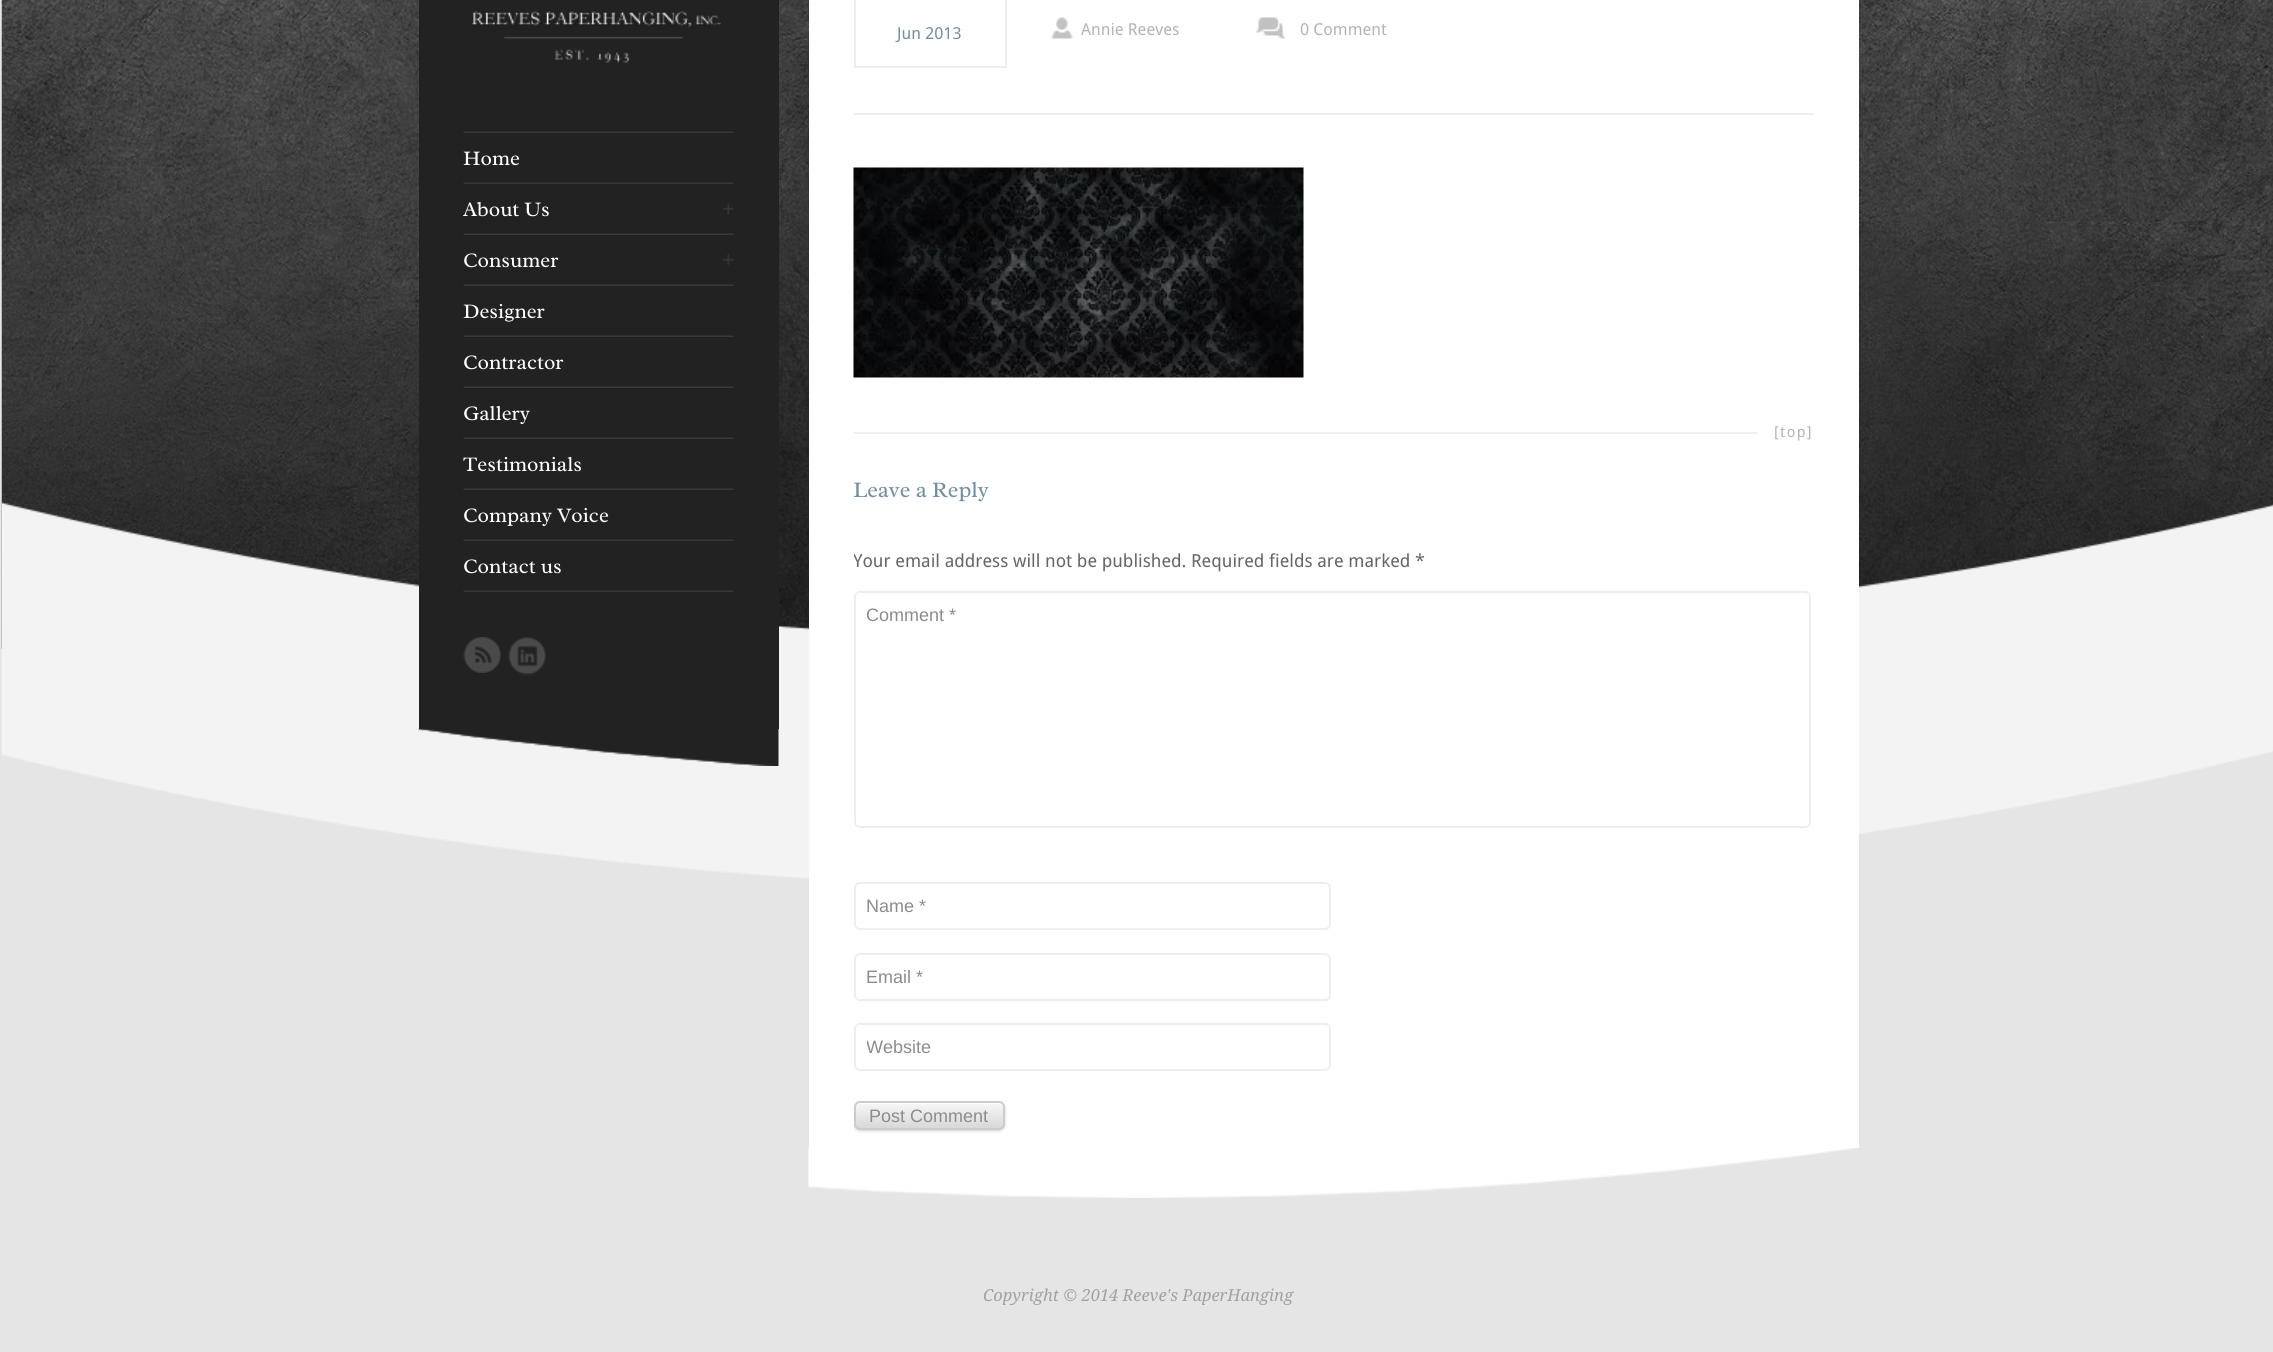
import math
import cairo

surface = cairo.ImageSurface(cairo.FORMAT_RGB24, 2273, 1352)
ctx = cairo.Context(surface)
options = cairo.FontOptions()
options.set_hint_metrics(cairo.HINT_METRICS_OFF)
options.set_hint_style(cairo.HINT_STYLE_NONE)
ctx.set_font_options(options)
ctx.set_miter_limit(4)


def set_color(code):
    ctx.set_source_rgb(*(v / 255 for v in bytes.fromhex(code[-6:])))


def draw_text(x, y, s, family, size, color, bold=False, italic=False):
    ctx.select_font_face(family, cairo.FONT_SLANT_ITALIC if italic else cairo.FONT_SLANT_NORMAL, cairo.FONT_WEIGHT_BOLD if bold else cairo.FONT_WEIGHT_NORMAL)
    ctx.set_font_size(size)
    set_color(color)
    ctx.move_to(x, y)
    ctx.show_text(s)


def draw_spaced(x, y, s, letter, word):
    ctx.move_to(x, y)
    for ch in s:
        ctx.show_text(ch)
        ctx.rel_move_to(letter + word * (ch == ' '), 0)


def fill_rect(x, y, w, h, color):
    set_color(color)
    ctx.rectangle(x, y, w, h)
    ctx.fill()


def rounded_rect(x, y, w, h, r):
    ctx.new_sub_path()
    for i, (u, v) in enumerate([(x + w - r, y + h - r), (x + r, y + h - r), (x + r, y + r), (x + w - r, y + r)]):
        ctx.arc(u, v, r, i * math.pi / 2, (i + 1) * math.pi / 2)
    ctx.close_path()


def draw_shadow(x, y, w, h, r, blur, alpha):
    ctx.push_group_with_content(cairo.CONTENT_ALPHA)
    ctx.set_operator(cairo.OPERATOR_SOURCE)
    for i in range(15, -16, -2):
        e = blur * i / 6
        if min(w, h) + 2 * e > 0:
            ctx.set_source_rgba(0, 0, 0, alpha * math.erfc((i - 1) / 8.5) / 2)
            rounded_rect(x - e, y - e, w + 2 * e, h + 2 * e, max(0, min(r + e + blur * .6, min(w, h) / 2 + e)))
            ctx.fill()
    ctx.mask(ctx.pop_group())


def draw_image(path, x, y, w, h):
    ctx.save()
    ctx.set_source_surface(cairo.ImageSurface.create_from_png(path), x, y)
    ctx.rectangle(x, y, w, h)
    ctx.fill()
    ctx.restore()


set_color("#e5e5e5")
ctx.paint()
draw_image("assets/img1.png", 1, 0, 2272, 649)
draw_image("assets/img2.png", 1, 501, 2272, 378)
fill_rect(419, 0, 360, 729, "#222222")
draw_image("assets/img3.png", 471, 11, 250, 52)
draw_image("assets/img4.png", 463, 131, 271, 2)
draw_image("assets/img4.png", 463, 182, 271, 2)
draw_text(463, 165, "Home", "Radley", 21, "#ffffff")
draw_image("assets/img4.png", 463, 233, 271, 2)
draw_image("assets/img5.png", 723, 203, 11, 11)
draw_text(463, 216, "About Us", "Radley", 21, "#ffffff")
draw_image("assets/img4.png", 463, 284, 271, 2)
draw_image("assets/img5.png", 723, 254, 11, 11)
draw_text(463, 267, "Consumer", "Radley", 21, "#ffffff")
draw_image("assets/img4.png", 463, 335, 271, 2)
draw_text(463, 318, "Designer", "Radley", 21, "#ffffff")
draw_image("assets/img4.png", 463, 386, 271, 2)
draw_text(463, 369, "Contractor", "Radley", 21, "#ffffff")
draw_image("assets/img4.png", 463, 437, 271, 2)
draw_text(463, 420, "Gallery", "Radley", 21, "#ffffff")
draw_image("assets/img4.png", 463, 488, 271, 2)
draw_text(463, 471, "Testimonials", "Radley", 21, "#ffffff")
draw_image("assets/img4.png", 463, 539, 271, 2)
draw_text(463, 522, "Company Voice", "Radley", 21, "#ffffff")
draw_image("assets/img4.png", 463, 590, 271, 2)
draw_text(463, 573, "Contact us", "Radley", 21, "#ffffff")
draw_image("assets/img6.png", 463, 637, 38, 36)
draw_image("assets/img7.png", 508, 637, 38, 38)
draw_image("assets/img8.png", 418, 728, 361, 38)
fill_rect(809, 0, 1050, 1148, "#ffffff")
ctx.rectangle(855, -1, 151, 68)
set_color("#eeeeee")
ctx.stroke()
draw_text(897, 39, "Jun 2013", "Droid Sans", 16.5, "#748fa0")
draw_image("assets/img9.png", 1051, 17, 22, 22)
draw_text(1081, 35, "Annie Reeves", "Droid Sans", 16.5, "#b4b4b4")
draw_image("assets/img10.png", 1255, 17, 31, 22)
draw_text(1300, 35, "0 Comment", "Droid Sans", 16.5, "#b4b4b4")
fill_rect(854, 113, 960, 2, "#eeeeee")
draw_image("assets/img11.png", 853, 167, 451, 211)
fill_rect(854, 432, 904, 2, "#eeeeee")
ctx.set_font_size(15)
set_color("#b4b4b4")
draw_spaced(1774, 437, "[top]", 1.5, 0)
ctx.save()
ctx.rectangle(854, 479, 960, 667)
ctx.clip()
draw_text(853, 497, "Leave a Reply", "Radley", 22.5, "#748fa0")
draw_text(853, 567, "Your email address will not be published.", "Droid Sans", 18, "#666666")
ctx.restore()
draw_text(1191, 567, "Required fields are marked *", "Droid Sans", 18, "#666666")
rounded_rect(855, 592, 955, 235, 5)
set_color("#eeeeee")
ctx.stroke()
draw_text(866, 621, "Comment *", "Liberation Sans", 18, "#8c8c8c")
rounded_rect(855, 883, 475, 46, 5)
set_color("#eeeeee")
ctx.stroke()
draw_text(866, 912, "Name *", "Liberation Sans", 18, "#8c8c8c")
rounded_rect(855, 954, 475, 46, 5)
set_color("#eeeeee")
ctx.stroke()
draw_text(866, 983, "Email *", "Liberation Sans", 18, "#8c8c8c")
rounded_rect(855, 1024, 475, 46, 5)
set_color("#eeeeee")
ctx.stroke()
ctx.save()
ctx.rectangle(867, 1037, 450, 21)
ctx.clip()
draw_text(866, 1053, "Website", "Liberation Sans", 18, "#8c8c8c")
ctx.restore()
ctx.save()
ctx.rectangle(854, 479, 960, 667)
ctx.clip()
set_color("#d1d1d1")
draw_shadow(854, 1103, 151, 28, 6, 1.5, 1)
ctx.restore()
ctx.save()
rounded_rect(854, 1101, 151, 29, 6)
ctx.clip()
gradient = cairo.LinearGradient(855, 1103, 855, 1128)
gradient.add_color_stop_rgba(0, 0.969, 0.969, 0.969, 1)
gradient.add_color_stop_rgba(1, 0.847, 0.847, 0.847, 1)
ctx.set_source(gradient)
ctx.rectangle(854, 1103, 151, 25)
ctx.fill()
ctx.restore()
set_color("#ffffff")
ctx.new_path()
ctx.move_to(860, 1104)
ctx.line_to(999, 1104)
ctx.curve_to(1001, 1104, 1004, 1106, 1004, 1108)
ctx.curve_to(1004, 1105, 1002, 1103, 999, 1103)
ctx.line_to(860, 1103)
ctx.curve_to(857, 1103, 855, 1105, 855, 1108)
ctx.curve_to(855, 1106, 857, 1104, 860, 1104)
ctx.close_path()
ctx.fill()
rounded_rect(855, 1102, 149, 27, 5)
set_color("#cccccc")
ctx.stroke()
draw_text(869, 1122, "Post Comment", "Liberation Sans", 18, "#8c8c8c")
draw_image("assets/img12.png", 808, 1147, 1050, 51)
draw_text(983, 1301, "Copyright © 2014 Reeve's PaperHanging", "Droid Serif", 16.5, "#a1a1a1", italic=True)
surface.write_to_png("output.png")
